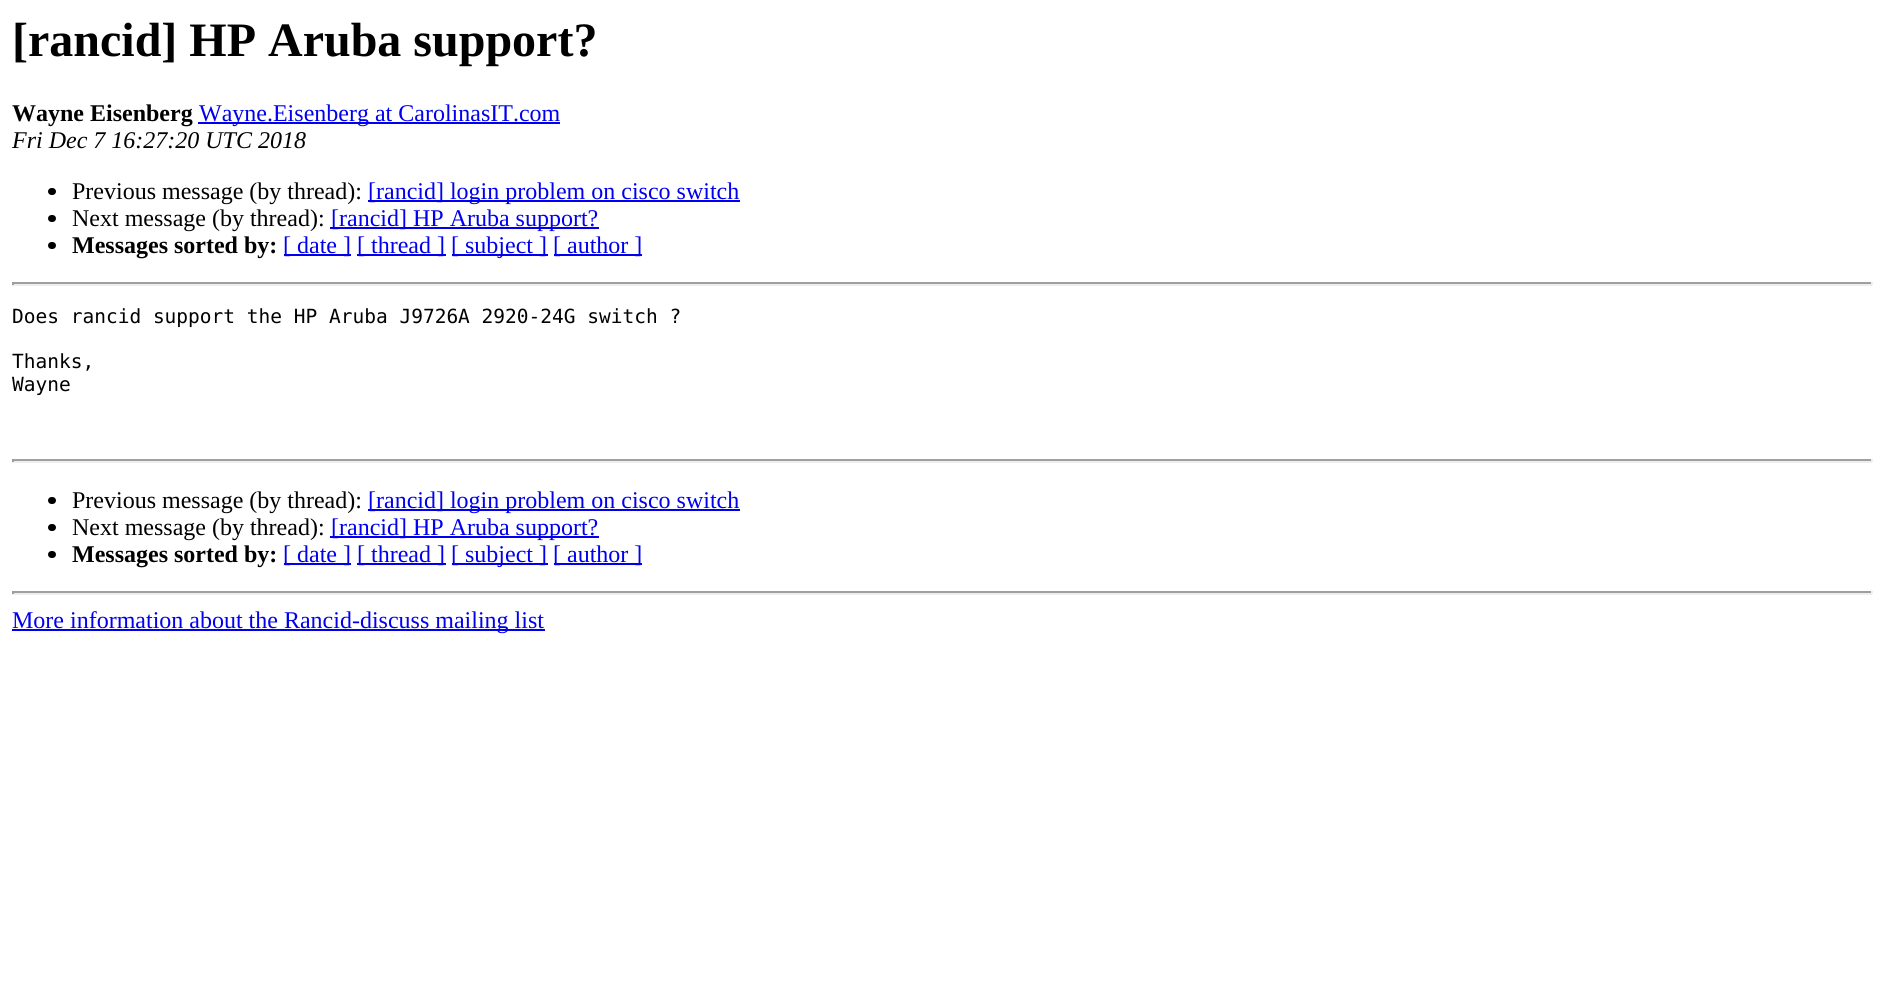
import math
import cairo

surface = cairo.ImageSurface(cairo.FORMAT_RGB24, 1883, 992)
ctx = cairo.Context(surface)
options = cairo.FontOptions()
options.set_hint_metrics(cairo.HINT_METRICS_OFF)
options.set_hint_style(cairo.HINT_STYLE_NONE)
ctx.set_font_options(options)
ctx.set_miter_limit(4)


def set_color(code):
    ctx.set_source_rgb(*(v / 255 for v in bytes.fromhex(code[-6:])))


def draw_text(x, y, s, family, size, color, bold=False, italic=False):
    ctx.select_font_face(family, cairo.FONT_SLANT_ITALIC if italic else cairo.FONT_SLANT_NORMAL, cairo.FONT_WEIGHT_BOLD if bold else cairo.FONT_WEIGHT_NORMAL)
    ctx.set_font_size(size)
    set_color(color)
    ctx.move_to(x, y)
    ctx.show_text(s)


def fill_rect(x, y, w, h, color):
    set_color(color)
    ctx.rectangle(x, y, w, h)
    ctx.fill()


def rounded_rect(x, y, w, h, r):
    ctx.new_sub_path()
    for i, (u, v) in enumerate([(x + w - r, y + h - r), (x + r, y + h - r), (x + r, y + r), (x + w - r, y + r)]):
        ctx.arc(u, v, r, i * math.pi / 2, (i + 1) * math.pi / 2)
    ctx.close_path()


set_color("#ffffff")
ctx.paint()
draw_text(12, 56, "[rancid] HP Aruba support?", "Liberation Serif", 48, "#000000", bold=True)
draw_text(12, 121, "Wayne Eisenberg", "Liberation Serif", 24, "#000000", bold=True)
fill_rect(198, 122, 362, 2, "#0000ee")
draw_text(199, 121, "Wayne.Eisenberg at CarolinasIT.com", "Liberation Serif", 24, "#0000ee")
draw_text(12, 148, "Fri Dec 7 16:27:20 UTC 2018", "Liberation Serif", 24, "#000000", italic=True)
rounded_rect(48, 188, 8, 7, 3.5)
ctx.fill()
draw_text(72, 199, "Previous message (by thread):", "Liberation Serif", 24, "#000000")
fill_rect(368, 200, 372, 2, "#0000ee")
draw_text(368, 199, "[rancid] login problem on cisco switch", "Liberation Serif", 24, "#0000ee")
set_color("#000000")
rounded_rect(48, 215, 8, 7, 3.5)
ctx.fill()
draw_text(72, 226, "Next message (by thread):", "Liberation Serif", 24, "#000000")
fill_rect(330, 227, 269, 2, "#0000ee")
draw_text(331, 226, "[rancid] HP Aruba support?", "Liberation Serif", 24, "#0000ee")
set_color("#000000")
rounded_rect(48, 242, 8, 7, 3.5)
ctx.fill()
draw_text(72, 253, "Messages sorted by:", "Liberation Serif", 24, "#000000", bold=True)
fill_rect(284, 254, 67, 2, "#0000ee")
draw_text(283, 253, "[ date ]", "Liberation Serif", 24, "#0000ee")
fill_rect(357, 254, 89, 2, "#0000ee")
draw_text(357, 253, "[ thread ]", "Liberation Serif", 24, "#0000ee")
fill_rect(452, 254, 96, 2, "#0000ee")
draw_text(451, 253, "[ subject ]", "Liberation Serif", 24, "#0000ee")
fill_rect(554, 254, 88, 2, "#0000ee")
draw_text(553, 253, "[ author ]", "Liberation Serif", 24, "#0000ee")
fill_rect(12, 282, 1860, 2, "#9f9f9f")
fill_rect(1871, 282, 2, 3, "#eeeeee")
fill_rect(12, 284, 1860, 2, "#eeeeee")
fill_rect(12, 282, 2, 3, "#9f9f9f")
draw_text(12, 323, "Does rancid support the HP Aruba J9726A 2920-24G switch ?", "DejaVu Sans Mono", 19.5, "#000000")
draw_text(12, 368, "Thanks,", "DejaVu Sans Mono", 19.5, "#000000")
draw_text(12, 391, "Wayne", "DejaVu Sans Mono", 19.5, "#000000")
fill_rect(12, 459, 1860, 2, "#9f9f9f")
fill_rect(1871, 459, 2, 3, "#eeeeee")
fill_rect(12, 461, 1860, 2, "#eeeeee")
fill_rect(12, 459, 2, 3, "#9f9f9f")
set_color("#000000")
rounded_rect(48, 497, 8, 7, 3.5)
ctx.fill()
draw_text(72, 508, "Previous message (by thread):", "Liberation Serif", 24, "#000000")
fill_rect(368, 509, 372, 2, "#0000ee")
draw_text(368, 508, "[rancid] login problem on cisco switch", "Liberation Serif", 24, "#0000ee")
set_color("#000000")
rounded_rect(48, 524, 8, 7, 3.5)
ctx.fill()
draw_text(72, 535, "Next message (by thread):", "Liberation Serif", 24, "#000000")
fill_rect(330, 536, 269, 2, "#0000ee")
draw_text(331, 535, "[rancid] HP Aruba support?", "Liberation Serif", 24, "#0000ee")
set_color("#000000")
rounded_rect(48, 551, 8, 7, 3.5)
ctx.fill()
draw_text(72, 562, "Messages sorted by:", "Liberation Serif", 24, "#000000", bold=True)
fill_rect(284, 563, 67, 2, "#0000ee")
draw_text(283, 562, "[ date ]", "Liberation Serif", 24, "#0000ee")
fill_rect(357, 563, 89, 2, "#0000ee")
draw_text(357, 562, "[ thread ]", "Liberation Serif", 24, "#0000ee")
fill_rect(452, 563, 96, 2, "#0000ee")
draw_text(451, 562, "[ subject ]", "Liberation Serif", 24, "#0000ee")
fill_rect(554, 563, 88, 2, "#0000ee")
draw_text(553, 562, "[ author ]", "Liberation Serif", 24, "#0000ee")
fill_rect(12, 591, 1860, 2, "#9f9f9f")
fill_rect(1871, 591, 2, 3, "#eeeeee")
fill_rect(12, 593, 1860, 2, "#eeeeee")
fill_rect(12, 591, 2, 3, "#9f9f9f")
fill_rect(12, 629, 533, 2, "#0000ee")
draw_text(12, 628, "More information about the Rancid-discuss mailing list", "Liberation Serif", 24, "#0000ee")
surface.write_to_png("output.png")
